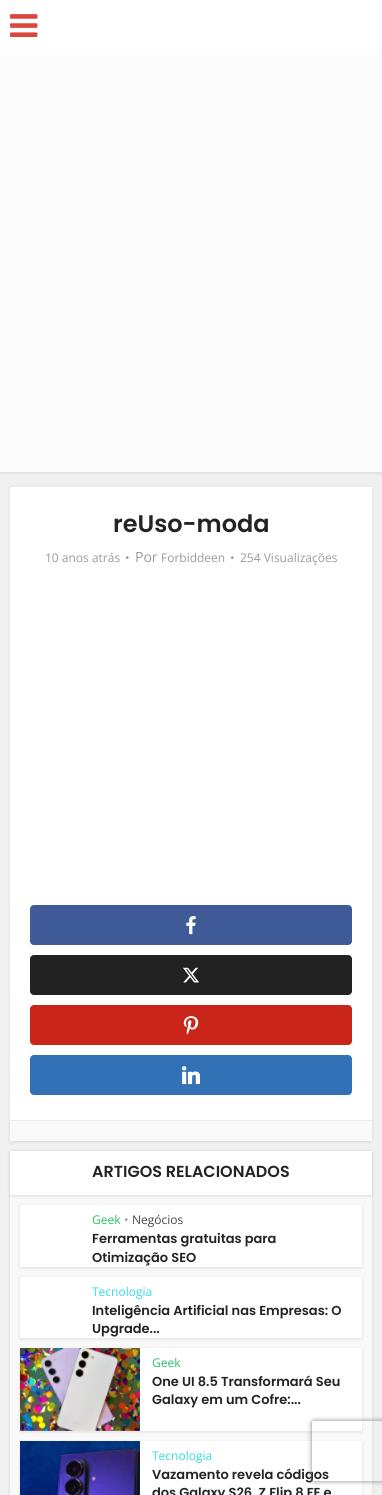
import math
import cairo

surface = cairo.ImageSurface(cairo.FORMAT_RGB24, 382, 1495)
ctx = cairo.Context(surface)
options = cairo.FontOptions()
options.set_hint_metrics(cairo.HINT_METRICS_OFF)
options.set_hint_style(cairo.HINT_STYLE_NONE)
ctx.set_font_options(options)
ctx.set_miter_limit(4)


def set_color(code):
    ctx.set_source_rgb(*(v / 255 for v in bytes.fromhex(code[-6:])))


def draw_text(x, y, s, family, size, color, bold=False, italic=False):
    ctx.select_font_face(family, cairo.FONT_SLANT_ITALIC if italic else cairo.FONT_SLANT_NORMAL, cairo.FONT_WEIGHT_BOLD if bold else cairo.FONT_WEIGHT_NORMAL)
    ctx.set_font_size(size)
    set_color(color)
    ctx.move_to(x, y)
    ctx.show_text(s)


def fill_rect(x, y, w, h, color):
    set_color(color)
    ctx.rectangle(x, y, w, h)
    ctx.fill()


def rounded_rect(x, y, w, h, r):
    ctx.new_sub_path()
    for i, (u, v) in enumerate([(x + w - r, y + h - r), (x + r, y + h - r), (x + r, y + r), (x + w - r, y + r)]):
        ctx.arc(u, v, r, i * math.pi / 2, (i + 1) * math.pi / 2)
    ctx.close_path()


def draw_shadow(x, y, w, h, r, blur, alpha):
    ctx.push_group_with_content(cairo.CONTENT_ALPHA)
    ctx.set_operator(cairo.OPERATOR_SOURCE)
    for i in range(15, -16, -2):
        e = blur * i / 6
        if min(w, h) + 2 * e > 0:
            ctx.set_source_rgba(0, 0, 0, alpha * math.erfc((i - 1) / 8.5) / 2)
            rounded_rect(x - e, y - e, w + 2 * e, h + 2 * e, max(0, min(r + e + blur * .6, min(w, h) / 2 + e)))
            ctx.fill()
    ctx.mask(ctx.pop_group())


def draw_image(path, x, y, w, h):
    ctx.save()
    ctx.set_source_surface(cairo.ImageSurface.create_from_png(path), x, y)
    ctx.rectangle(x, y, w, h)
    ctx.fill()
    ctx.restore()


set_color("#f0f0f0")
ctx.paint()
set_color("#000000")
draw_shadow(0, 1, 382, 472, 0, 1.5, 0.1)
fill_rect(0, 0, 382, 50, "#ffffff")
draw_image("assets/img1.png", 10, 14, 28, 23)
fill_rect(0, 50, 382, 422, "#fcfcfc")
set_color("#000000")
draw_shadow(10, 488, 362, 654, 0, 1.5, 0.1)
fill_rect(10, 487, 362, 633, "#ffffff")
draw_text(113, 532, "reUso-moda", "Poppins SemiBold", 24, "#232323")
draw_text(45, 562, "10 anos atrás", "Open Sans", 12, "#9b9b9b")
draw_text(125, 562, "•", "Open Sans", 12, "#9b9b9b")
draw_text(135, 562, "Por", "Open Sans", 14, "#9b9b9b")
draw_text(161, 562, "Forbiddeen", "Open Sans", 12, "#9b9b9b")
draw_text(230, 562, "•", "Open Sans", 12, "#9b9b9b")
draw_text(240, 562, "254 Visualizações", "Open Sans", 12, "#9b9b9b")
set_color("#3e5b98")
rounded_rect(30, 905, 322, 40, 4)
ctx.fill()
draw_image("assets/img2.png", 186, 916, 10, 19)
set_color("#222222")
rounded_rect(30, 955, 322, 40, 4)
ctx.fill()
draw_image("assets/img3.png", 183, 967, 16, 16)
set_color("#c92619")
rounded_rect(30, 1005, 322, 40, 4)
ctx.fill()
draw_image("assets/img4.png", 183, 1016, 16, 19)
set_color("#3371b7")
rounded_rect(30, 1055, 322, 40, 4)
ctx.fill()
draw_image("assets/img5.png", 182, 1066, 18, 19)
fill_rect(10, 1121, 362, 20, "#f9f9f9")
fill_rect(10, 1120, 362, 1, "#ededed")
set_color("#000000")
draw_shadow(10, 1152, 362, 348, 0, 1.5, 0.1)
fill_rect(10, 1195, 362, 300, "#f9f9f9")
set_color("#000000")
draw_shadow(10, 1152, 362, 44, 0, 1.5, 0.1)
fill_rect(10, 1151, 362, 44, "#ffffff")
draw_text(92, 1177, "ARTIGOS RELACIONADOS", "Poppins SemiBold", 16, "#232323")
set_color("#000000")
draw_shadow(20, 1206, 342, 62, 0, 1.5, 0.1)
fill_rect(20, 1205, 342, 62, "#ffffff")
draw_text(92, 1224, "Geek", "Open Sans", 12, "#2bbf6b")
draw_text(124, 1224, "•", "Open Sans", 12, "#9b9b9b")
draw_text(132, 1224, "Negócios", "Open Sans", 12, "#494949")
draw_text(92, 1243, "Ferramentas gratuitas para", "Poppins SemiBold", 13, "#232323")
draw_text(92, 1262, "Otimização SEO", "Poppins SemiBold", 13, "#232323")
set_color("#000000")
draw_shadow(20, 1278, 342, 61, 0, 1.5, 0.1)
fill_rect(20, 1277, 342, 61, "#ffffff")
draw_text(92, 1296, "Tecnologia", "Open Sans", 12, "#33dddd")
draw_text(92, 1315, "Inteligência Artificial nas Empresas: O", "Poppins SemiBold", 13, "#232323")
draw_text(92, 1333, "Upgrade...", "Poppins SemiBold", 13, "#232323")
set_color("#000000")
draw_shadow(20, 1349, 342, 83, 0, 1.5, 0.1)
fill_rect(20, 1348, 342, 83, "#ffffff")
draw_image("assets/img6.png", 20, 1348, 120, 83)
draw_text(152, 1367, "Geek", "Open Sans", 12, "#2bbf6b")
draw_text(152, 1386, "One UI 8.5 Transformará Seu", "Poppins SemiBold", 13, "#232323")
draw_text(152, 1404, "Galaxy em um Cofre:...", "Poppins SemiBold", 13, "#232323")
set_color("#000000")
draw_shadow(20, 1442, 342, 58, 0, 1.5, 0.1)
fill_rect(140, 1441, 222, 54, "#ffffff")
draw_image("assets/img7.png", 20, 1441, 120, 54)
draw_text(152, 1460, "Tecnologia", "Open Sans", 12, "#33dddd")
draw_text(152, 1479, "Vazamento revela códigos", "Poppins SemiBold", 13, "#232323")
draw_text(152, 1497, "dos Galaxy S26, Z Flip 8 FE e", "Poppins SemiBold", 13, "#232323")
ctx.save()
ctx.set_fill_rule(cairo.FILL_RULE_EVEN_ODD)
ctx.new_path()
ctx.move_to(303, 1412)
ctx.line_to(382, 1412)
ctx.line_to(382, 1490)
ctx.line_to(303, 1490)
ctx.close_path()
ctx.move_to(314, 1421)
ctx.line_to(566, 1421)
ctx.curve_to(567, 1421, 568, 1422, 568, 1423)
ctx.line_to(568, 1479)
ctx.curve_to(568, 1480, 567, 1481, 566, 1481)
ctx.line_to(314, 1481)
ctx.curve_to(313, 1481, 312, 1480, 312, 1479)
ctx.line_to(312, 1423)
ctx.curve_to(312, 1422, 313, 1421, 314, 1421)
ctx.close_path()
ctx.clip()
set_color("#808080")
draw_shadow(312, 1421, 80, 60, 2, 2.5, 1)
ctx.restore()
surface.write_to_png("output.png")
